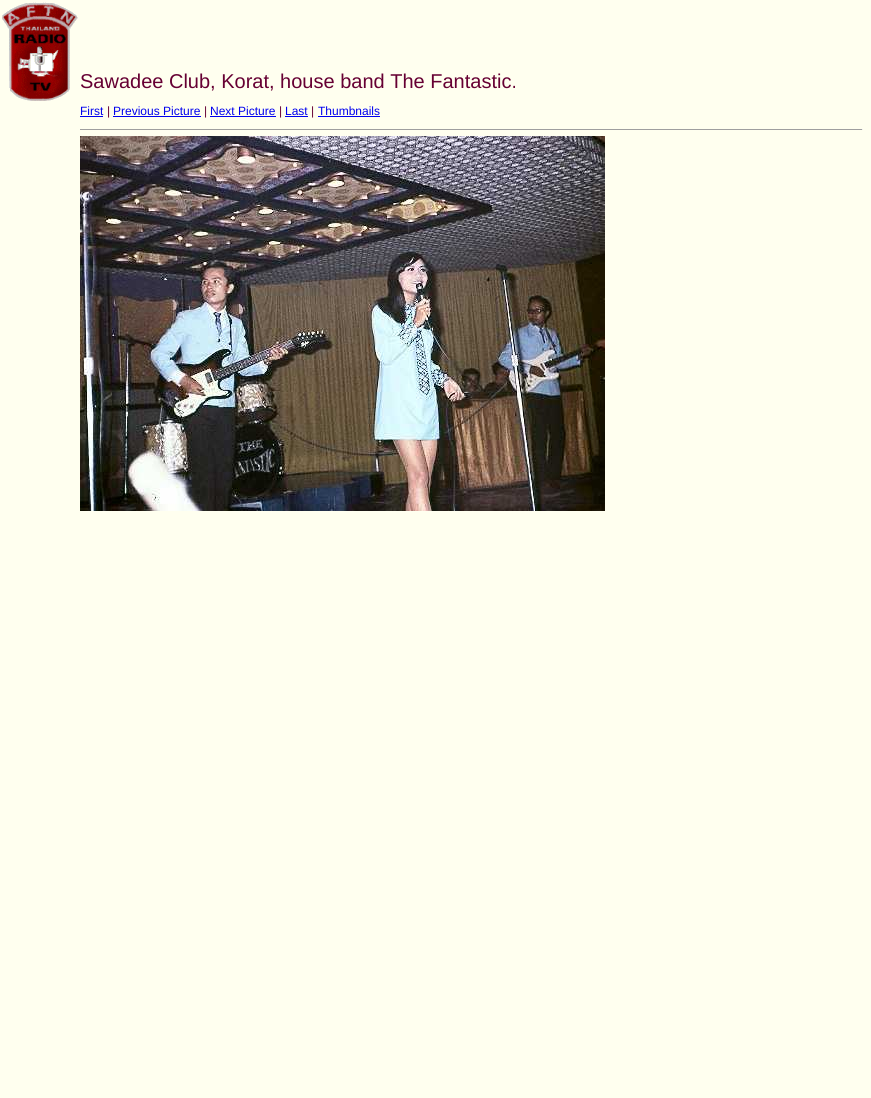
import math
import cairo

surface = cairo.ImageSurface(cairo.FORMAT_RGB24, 871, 1098)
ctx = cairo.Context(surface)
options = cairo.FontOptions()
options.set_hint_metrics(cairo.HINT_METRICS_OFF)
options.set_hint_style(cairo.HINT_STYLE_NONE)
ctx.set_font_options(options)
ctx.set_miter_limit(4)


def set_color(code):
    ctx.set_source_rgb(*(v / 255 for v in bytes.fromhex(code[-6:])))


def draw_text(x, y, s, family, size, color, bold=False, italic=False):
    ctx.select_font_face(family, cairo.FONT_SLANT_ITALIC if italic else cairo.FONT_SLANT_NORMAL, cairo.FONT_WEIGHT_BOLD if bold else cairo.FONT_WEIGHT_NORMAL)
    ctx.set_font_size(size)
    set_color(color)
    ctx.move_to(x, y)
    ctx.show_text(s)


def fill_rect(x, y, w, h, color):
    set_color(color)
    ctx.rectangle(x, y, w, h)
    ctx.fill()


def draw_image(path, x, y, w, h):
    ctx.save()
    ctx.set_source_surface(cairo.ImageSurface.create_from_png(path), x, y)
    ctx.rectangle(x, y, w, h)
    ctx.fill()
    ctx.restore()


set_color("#ffffef")
ctx.paint()
draw_image("assets/img1.png", 2, 2, 76, 99)
draw_text(80, 88, "Sawadee Club, Korat, house band The Fantastic.", "Liberation Sans", 20, "#660033")
draw_text(80, 115, "First", "Liberation Sans", 12, "#0000ee")
fill_rect(80, 116, 23, 1, "#0000ee")
draw_text(107, 115, "|", "Liberation Sans", 12, "#660033")
draw_text(113, 115, "Previous Picture", "Liberation Sans", 12, "#0000ee")
fill_rect(113, 116, 88, 1, "#0000ee")
draw_text(204, 115, "|", "Liberation Sans", 12, "#660033")
draw_text(210, 115, "Next Picture", "Liberation Sans", 12, "#0000ee")
fill_rect(210, 116, 66, 1, "#0000ee")
draw_text(279, 115, "|", "Liberation Sans", 12, "#660033")
draw_text(285, 115, "Last", "Liberation Sans", 12, "#0000ee")
fill_rect(285, 116, 23, 1, "#0000ee")
draw_text(311, 115, "|", "Liberation Sans", 12, "#660033")
draw_text(318, 115, "Thumbnails", "Liberation Sans", 12, "#0000ee")
fill_rect(318, 116, 62, 1, "#0000ee")
fill_rect(80, 129, 783, 1, "#9f9f9f")
fill_rect(862, 129, 1, 1, "#eeeeee")
draw_image("assets/img2.png", 80, 136, 525, 375)
surface.write_to_png("output.png")
